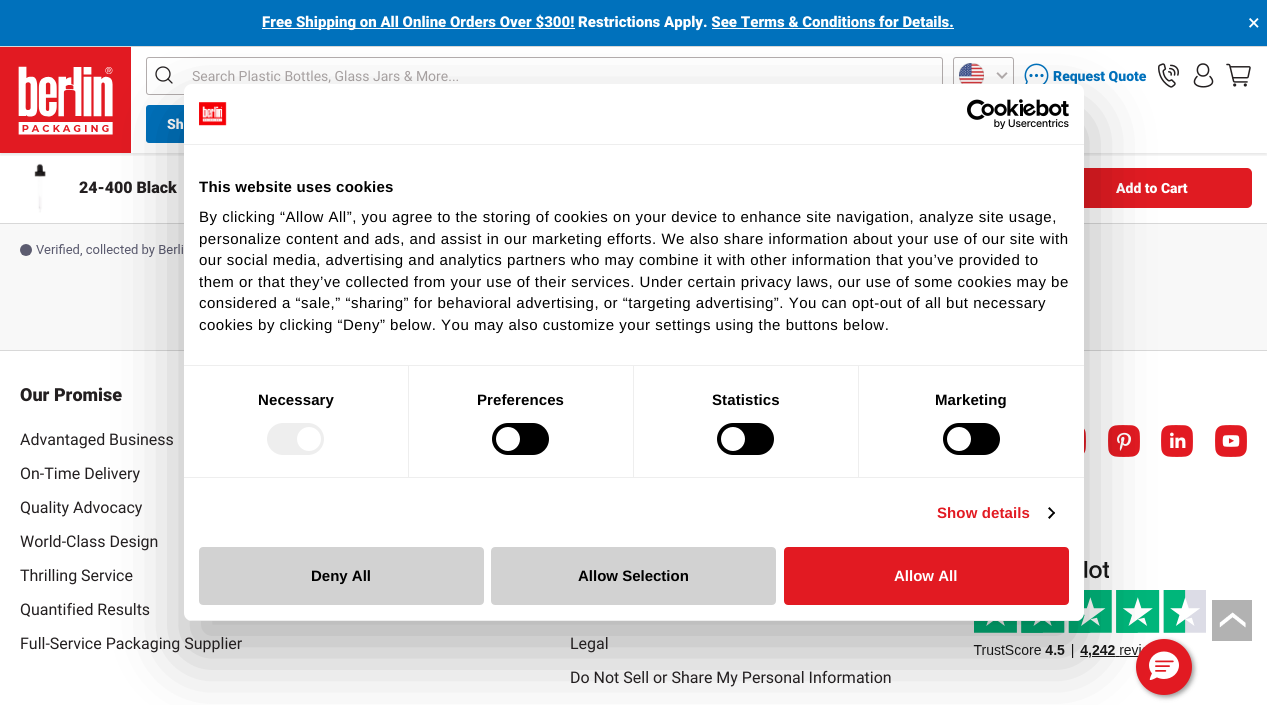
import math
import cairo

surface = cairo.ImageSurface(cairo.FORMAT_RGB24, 1267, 705)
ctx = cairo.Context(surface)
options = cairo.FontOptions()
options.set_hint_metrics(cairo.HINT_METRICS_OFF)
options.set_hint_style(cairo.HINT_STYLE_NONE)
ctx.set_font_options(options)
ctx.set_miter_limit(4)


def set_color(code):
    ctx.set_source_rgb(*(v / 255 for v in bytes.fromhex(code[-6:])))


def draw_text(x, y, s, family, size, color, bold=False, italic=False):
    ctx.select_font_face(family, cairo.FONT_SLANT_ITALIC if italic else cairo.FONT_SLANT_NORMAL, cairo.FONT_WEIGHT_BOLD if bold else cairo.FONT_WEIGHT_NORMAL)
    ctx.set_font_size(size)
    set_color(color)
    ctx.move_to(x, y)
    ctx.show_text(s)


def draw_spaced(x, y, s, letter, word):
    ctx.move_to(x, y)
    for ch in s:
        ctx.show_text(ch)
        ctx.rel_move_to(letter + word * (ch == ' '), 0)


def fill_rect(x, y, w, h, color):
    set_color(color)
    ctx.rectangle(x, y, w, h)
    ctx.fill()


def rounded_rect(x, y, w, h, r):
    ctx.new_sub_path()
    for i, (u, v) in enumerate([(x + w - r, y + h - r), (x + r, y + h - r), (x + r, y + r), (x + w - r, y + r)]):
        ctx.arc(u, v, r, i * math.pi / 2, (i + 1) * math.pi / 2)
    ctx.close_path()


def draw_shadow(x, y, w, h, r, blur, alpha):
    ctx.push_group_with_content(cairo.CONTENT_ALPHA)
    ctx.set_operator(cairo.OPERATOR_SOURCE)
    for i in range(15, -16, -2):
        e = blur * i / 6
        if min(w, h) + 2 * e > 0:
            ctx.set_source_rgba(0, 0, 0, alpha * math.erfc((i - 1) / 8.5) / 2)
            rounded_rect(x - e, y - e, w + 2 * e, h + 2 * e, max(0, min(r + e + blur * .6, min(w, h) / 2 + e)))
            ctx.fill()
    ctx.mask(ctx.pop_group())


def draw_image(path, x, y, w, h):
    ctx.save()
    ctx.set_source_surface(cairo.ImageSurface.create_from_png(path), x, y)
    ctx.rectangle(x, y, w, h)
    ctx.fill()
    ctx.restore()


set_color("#ffffff")
ctx.paint()
fill_rect(0, 0, 1267, 46, "#0071bc")
fill_rect(0, 46, 1267, 1, "#d8d8d8")
fill_rect(262, 28, 313, 1, "#ffffff")
draw_text(262, 27, "Free Shipping on All Online Orders Over $300! Restrictions Apply. See Terms & Conditions for Details.", "Roboto Black", 15, "#ffffff")
fill_rect(712, 28, 242, 1, "#ffffff")
draw_text(1248, 30, "×", "Roboto", 22, "#ffffff")
ctx.save()
ctx.rectangle(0, 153, 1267, 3)
ctx.clip()
set_color("#000000")
draw_shadow(0, 49, 1267, 106, 0, 1.5, 0.1)
ctx.restore()
draw_image("assets/img1.png", 0, 47, 131, 106)
rounded_rect(146.5, 57.5, 796, 37, 2.5)
set_color("#b3adad")
ctx.set_line_width(1)
ctx.stroke()
ctx.arc(163, 74, 7, 0, 2 * math.pi)
set_color("#231f20")
ctx.set_line_width(1.3)
ctx.stroke()
ctx.new_path()
ctx.move_to(172, 83)
ctx.line_to(168, 79)
ctx.set_line_cap(cairo.LINE_CAP_ROUND)
ctx.set_line_join(cairo.LINE_JOIN_ROUND)
ctx.stroke()
draw_text(192, 81, "Search Plastic Bottles, Glass Jars & More...", "Roboto", 14, "#aca6a6")
rounded_rect(953.5, 57.5, 60, 37, 2.5)
set_color("#b3adad")
ctx.set_line_width(1)
ctx.set_line_cap(cairo.LINE_CAP_BUTT)
ctx.set_line_join(cairo.LINE_JOIN_MITER)
ctx.stroke()
draw_image("assets/img2.png", 959, 63, 25, 21)
draw_image("assets/img3.png", 996, 72, 12, 7)
draw_image("assets/img4.png", 1024, 63, 25, 21)
draw_text(1053, 81, "Request Quote", "Roboto Black", 14, "#0071bc")
draw_image("assets/img5.png", 1158, 63, 21, 25)
ctx.new_path()
ctx.move_to(1210, 76.5)
ctx.curve_to(1222.5, 90, 1184.5, 90.5, 1197, 76.5)
ctx.move_to(1203, 64)
ctx.curve_to(1210.5, 64, 1210.5, 76, 1203, 76)
ctx.curve_to(1195.5, 76, 1195.5, 64, 1203, 64)
ctx.close_path()
set_color("#231f20")
ctx.set_line_width(1.5)
ctx.set_line_cap(cairo.LINE_CAP_ROUND)
ctx.set_line_join(cairo.LINE_JOIN_ROUND)
ctx.stroke()
draw_image("assets/img6.png", 1226, 63, 25, 24)
set_color("#0071bc")
rounded_rect(147, 106, 126, 36, 2)
ctx.fill_preserve()
ctx.set_line_width(2)
ctx.set_line_cap(cairo.LINE_CAP_BUTT)
ctx.set_line_join(cairo.LINE_JOIN_MITER)
ctx.stroke()
draw_text(167, 129, "Sh", "Roboto Black", 14, "#ffffff")
fill_rect(0, 223, 1267, 1, "#d8d8d8")
draw_image("assets/img7.png", 34, 163, 12, 50)
draw_text(79, 193, "24-400 Black", "Roboto Black", 16, "#231f20")
set_color("#e01b22")
rounded_rect(1053, 169, 198, 38, 4)
ctx.fill_preserve()
ctx.stroke()
draw_text(1116, 193, "Add to Cart", "Roboto Black", 14, "#ffffff")
fill_rect(0, 224, 1267, 126, "#f8f8f8")
draw_image("assets/img8.png", 20, 244, 163, 13)
draw_image("assets/img9.png", 1212, 600, 40, 41)
fill_rect(0, 350, 1267, 1, "#d8d8d8")
draw_image("assets/img12.png", 1084, 428, 2, 26)
draw_image("assets/img13.png", 1108, 425, 32, 32)
draw_image("assets/img14.png", 1161, 425, 32, 32)
draw_image("assets/img16.png", 973, 561, 233, 97)
set_color("#2d2d2d")
draw_shadow(1138, 641, 56, 56, 28, 2.5, 0.5)
set_color("#e21a22")
ctx.arc(1164, 667, 28, 0, 2 * math.pi)
ctx.fill()
draw_image("assets/img17.png", 1149, 651, 30, 29)
set_color("#000000")
draw_shadow(184, 116, 900, 537, 8, 34, 0.3)
set_color("#ffffff")
rounded_rect(184, 84, 900, 537, 8)
ctx.fill()
fill_rect(184, 144, 900, 1, "#eeeeee")
draw_image("assets/img10.png", 199, 102, 28, 24)
draw_image("assets/img11.png", 967, 99, 102, 30)
fill_rect(184, 365, 900, 1, "#eeeeee")
ctx.select_font_face("Liberation Sans", cairo.FONT_SLANT_NORMAL, cairo.FONT_WEIGHT_BOLD)
ctx.set_font_size(15)
set_color("#000000")
draw_spaced(199, 192, "This website uses cookies", 0.25, 0)
ctx.select_font_face("Liberation Sans")
draw_spaced(199, 222, "By clicking “Allow All”, you agree to the storing of cookies on your device to enhance site navigation, analyze site usage,", 0.5, 0)
draw_spaced(199, 244, "personalize content and ads, and assist in our marketing efforts. We also share information about your use of our site with", 0.5, 0)
draw_spaced(199, 265, "our social media, advertising and analytics partners who may combine it with other information that you’ve provided to", 0.5, 0)
draw_spaced(199, 287, "them or that they’ve collected from your use of their services. Under certain privacy laws, our use of some cookies may be", 0.5, 0)
draw_spaced(199, 308, "considered a “sale,” “sharing” for behavioral advertising, or “targeting advertising”. You can opt-out of all but necessary", 0.5, 0)
draw_spaced(199, 330, "cookies by clicking “Deny” below. You may also customize your settings using the buttons below.", 0.5, 0)
fill_rect(184, 477, 900, 1, "#eeeeee")
fill_rect(408, 366, 1, 111, "#eeeeee")
ctx.select_font_face("Liberation Sans", cairo.FONT_SLANT_NORMAL, cairo.FONT_WEIGHT_BOLD)
set_color("#000000")
draw_spaced(258, 405, "Necessary", 0.1, 0)
set_color("#eeeeee")
rounded_rect(267, 423, 57, 32, 16)
ctx.fill()
set_color("#ffffff")
ctx.arc(309, 439, 12, 0, 2 * math.pi)
ctx.fill()
fill_rect(633, 366, 1, 111, "#eeeeee")
set_color("#000000")
draw_spaced(477, 405, "Preferences", 0.1, 0)
rounded_rect(492, 423, 57, 32, 16)
ctx.fill()
set_color("#ffffff")
ctx.arc(508, 439, 12, 0, 2 * math.pi)
ctx.fill()
fill_rect(858, 366, 1, 111, "#eeeeee")
set_color("#000000")
draw_spaced(712, 405, "Statistics", 0.1, 0)
rounded_rect(717, 423, 57, 32, 16)
ctx.fill()
set_color("#ffffff")
ctx.arc(733, 439, 12, 0, 2 * math.pi)
ctx.fill()
set_color("#000000")
draw_spaced(935, 405, "Marketing", 0.1, 0)
rounded_rect(943, 423, 57, 32, 16)
ctx.fill()
set_color("#ffffff")
ctx.arc(959, 439, 12, 0, 2 * math.pi)
ctx.fill()
set_color("#e21a22")
draw_spaced(937, 518, "Show details", 0.1, 0)
set_color("#000000")
ctx.new_path()
ctx.move_to(1049.5, 507)
ctx.line_to(1055, 513)
ctx.line_to(1054, 514)
ctx.line_to(1048, 508.5)
ctx.close_path()
ctx.fill()
ctx.new_path()
ctx.move_to(1054, 511.5)
ctx.line_to(1055, 513)
ctx.line_to(1049.5, 519)
ctx.line_to(1048, 517.5)
ctx.close_path()
ctx.fill()
ctx.save()
rounded_rect(184, 84, 900, 537, 8)
ctx.clip()
fill_rect(184, 620, 900, 1, "#eeeeee")
ctx.restore()
set_color("#d2d2d2")
rounded_rect(200, 548, 283, 56, 3)
ctx.fill_preserve()
ctx.stroke()
draw_text(311, 581, "Deny All", "Liberation Sans", 15, "#000000", bold=True)
set_color("#d2d2d2")
rounded_rect(492, 548, 283, 56, 3)
ctx.fill_preserve()
ctx.stroke()
draw_text(578, 581, "Allow Selection", "Liberation Sans", 15, "#000000", bold=True)
set_color("#e21a22")
rounded_rect(785, 548, 283, 56, 3)
ctx.fill_preserve()
ctx.stroke()
draw_text(894, 581, "Allow All", "Liberation Sans", 15, "#ffffff", bold=True)
draw_text(20, 401, "Our Promise", "Roboto Black", 18, "#231f20")
draw_text(20, 445, "Advantaged Business", "Roboto", 16, "#231f20")
draw_text(20, 479, "On-Time Delivery", "Roboto", 16, "#231f20")
draw_text(20, 513, "Quality Advocacy", "Roboto", 16, "#231f20")
draw_text(20, 547, "World-Class Design", "Roboto", 16, "#231f20")
draw_text(20, 581, "Thrilling Service", "Roboto", 16, "#231f20")
draw_text(20, 615, "Quantified Results", "Roboto", 16, "#231f20")
draw_text(20, 649, "Full-Service Packaging Supplier", "Roboto", 16, "#231f20")
draw_text(570, 649, "Legal", "Roboto", 16, "#231f20")
draw_text(570, 683, "Do Not Sell or Share My Personal Information", "Roboto", 16, "#231f20")
draw_image("assets/img15.png", 1215, 425, 32, 32)
surface.write_to_png("output.png")
